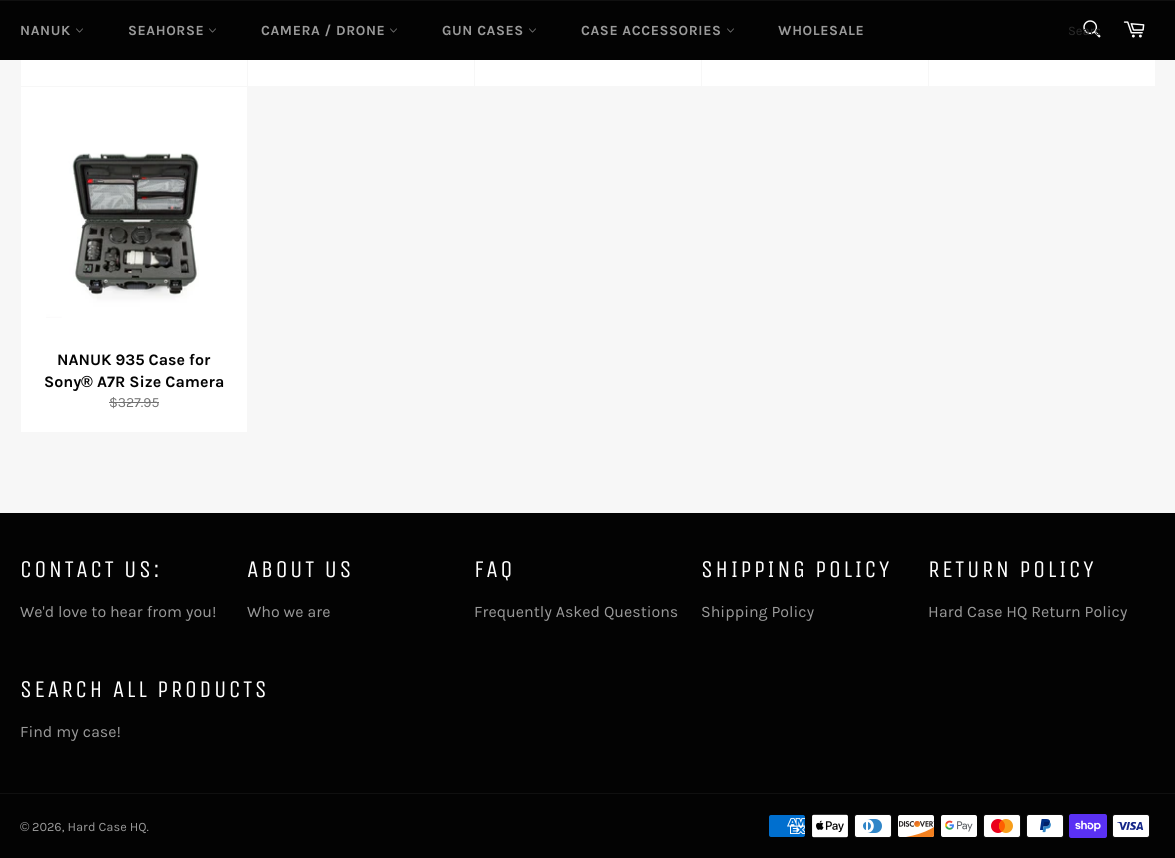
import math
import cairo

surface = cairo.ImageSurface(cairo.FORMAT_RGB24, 1175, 858)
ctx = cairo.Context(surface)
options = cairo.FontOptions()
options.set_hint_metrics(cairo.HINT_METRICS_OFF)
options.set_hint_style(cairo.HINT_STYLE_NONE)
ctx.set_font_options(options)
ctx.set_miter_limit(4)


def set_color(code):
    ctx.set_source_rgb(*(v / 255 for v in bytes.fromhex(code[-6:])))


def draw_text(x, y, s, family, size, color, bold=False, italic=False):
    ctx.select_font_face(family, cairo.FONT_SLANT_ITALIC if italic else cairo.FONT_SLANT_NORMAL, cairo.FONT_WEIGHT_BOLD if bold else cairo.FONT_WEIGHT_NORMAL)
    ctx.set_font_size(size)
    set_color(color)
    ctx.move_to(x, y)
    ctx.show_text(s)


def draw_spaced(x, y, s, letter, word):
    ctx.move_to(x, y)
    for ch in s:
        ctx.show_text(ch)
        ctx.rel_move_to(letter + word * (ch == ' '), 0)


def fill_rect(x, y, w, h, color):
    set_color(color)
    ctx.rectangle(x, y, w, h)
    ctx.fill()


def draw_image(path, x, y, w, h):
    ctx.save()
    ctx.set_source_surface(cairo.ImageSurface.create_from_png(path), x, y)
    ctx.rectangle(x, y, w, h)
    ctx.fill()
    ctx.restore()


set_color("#f7f7f7")
ctx.paint()
fill_rect(0, 1, 1175, 59, "#030303")
fill_rect(0, 0, 1175, 1, "#101010")
ctx.select_font_face("Karla", cairo.FONT_SLANT_NORMAL, cairo.FONT_WEIGHT_BOLD)
ctx.set_font_size(14)
set_color("#9a9a9a")
draw_spaced(20, 35, "NANUK", 0.6, 0)
draw_image("assets/img1.png", 76, 28, 7, 5)
draw_spaced(128, 35, "SEAHORSE", 0.6, 0)
draw_image("assets/img1.png", 209, 28, 7, 5)
draw_spaced(261, 35, "CAMERA / DRONE", 0.6, 0)
draw_image("assets/img1.png", 390, 28, 7, 5)
draw_spaced(442, 35, "GUN CASES", 0.6, 0)
draw_image("assets/img1.png", 529, 28, 7, 5)
draw_spaced(581, 35, "CASE ACCESSORIES", 0.6, 0)
draw_image("assets/img1.png", 727, 28, 7, 5)
draw_spaced(778, 35, "WHOLESALE", 0.6, 0)
draw_image("assets/img2.png", 1083, 20, 18, 18)
ctx.save()
ctx.rectangle(1068, 23, 32, 15)
ctx.clip()
draw_text(1068, 35, "Searc", "Karla", 13, "#2b2b2b")
ctx.restore()
draw_image("assets/img3.png", 1123, 21, 22, 17)
fill_rect(21, 60, 226, 26, "#ffffff")
fill_rect(248, 60, 226, 26, "#ffffff")
fill_rect(475, 60, 226, 26, "#ffffff")
fill_rect(702, 60, 226, 26, "#ffffff")
fill_rect(929, 60, 226, 26, "#ffffff")
fill_rect(21, 87, 226, 345, "#ffffff")
draw_image("assets/img4.png", 46, 153, 153, 165)
draw_text(57, 365, "NANUK 935 Case for", "Karla", 16, "#030303", bold=True)
draw_text(44, 387, "Sony", "Karla", 16, "#030303", bold=True)
draw_text(81, 387, "®", "Liberation Sans", 16, "#030303", bold=True)
draw_text(97, 387, "A7R Size Camera", "Karla", 16, "#030303", bold=True)
draw_text(109, 407, "$327.95", "Karla", 14, "#737373")
fill_rect(109, 402, 50, 1, "#737373")
fill_rect(0, 513, 1175, 345, "#030303")
ctx.select_font_face("Unica One")
ctx.set_font_size(24)
set_color("#ffffff")
draw_spaced(20, 577, "CONTACT US:", 2.4, 0)
draw_text(20, 617, "We'd love to hear from you!", "Karla", 16, "#9a9a9a")
ctx.select_font_face("Unica One")
ctx.set_font_size(24)
set_color("#ffffff")
draw_spaced(247, 577, "ABOUT US", 2.4, 0)
draw_text(247, 617, "Who we are", "Karla", 16, "#9a9a9a")
ctx.select_font_face("Unica One")
ctx.set_font_size(24)
set_color("#ffffff")
draw_spaced(474, 577, "FAQ", 2.4, 0)
draw_text(474, 617, "Frequently Asked Questions", "Karla", 16, "#9a9a9a")
ctx.select_font_face("Unica One")
ctx.set_font_size(24)
set_color("#ffffff")
draw_spaced(701, 577, "SHIPPING POLICY", 2.4, 0)
draw_text(701, 617, "Shipping Policy", "Karla", 16, "#9a9a9a")
ctx.select_font_face("Unica One")
ctx.set_font_size(24)
set_color("#ffffff")
draw_spaced(928, 577, "RETURN POLICY", 2.4, 0)
draw_text(928, 617, "Hard Case HQ Return Policy", "Karla", 16, "#9a9a9a")
ctx.select_font_face("Unica One")
ctx.set_font_size(24)
set_color("#ffffff")
draw_spaced(20, 697, "SEARCH ALL PRODUCTS", 2.4, 0)
draw_text(20, 737, "Find my case!", "Karla", 16, "#9a9a9a")
fill_rect(0, 793, 1175, 1, "#101010")
draw_text(20, 831, "©", "Liberation Sans", 12.75, "#9a9a9a")
draw_text(32, 831, "2026, Hard Case HQ.", "Karla", 12.75, "#9a9a9a")
draw_image("assets/img5.png", 769, 815, 36, 22)
draw_image("assets/img6.png", 812, 814, 36, 24)
draw_image("assets/img7.png", 854, 814, 38, 24)
draw_image("assets/img8.png", 898, 815, 37, 22)
draw_image("assets/img9.png", 941, 815, 36, 22)
draw_image("assets/img10.png", 983, 814, 38, 24)
draw_image("assets/img11.png", 1026, 814, 38, 24)
draw_image("assets/img12.png", 1069, 814, 38, 24)
draw_image("assets/img13.png", 1112, 814, 38, 24)
surface.write_to_png("output.png")
